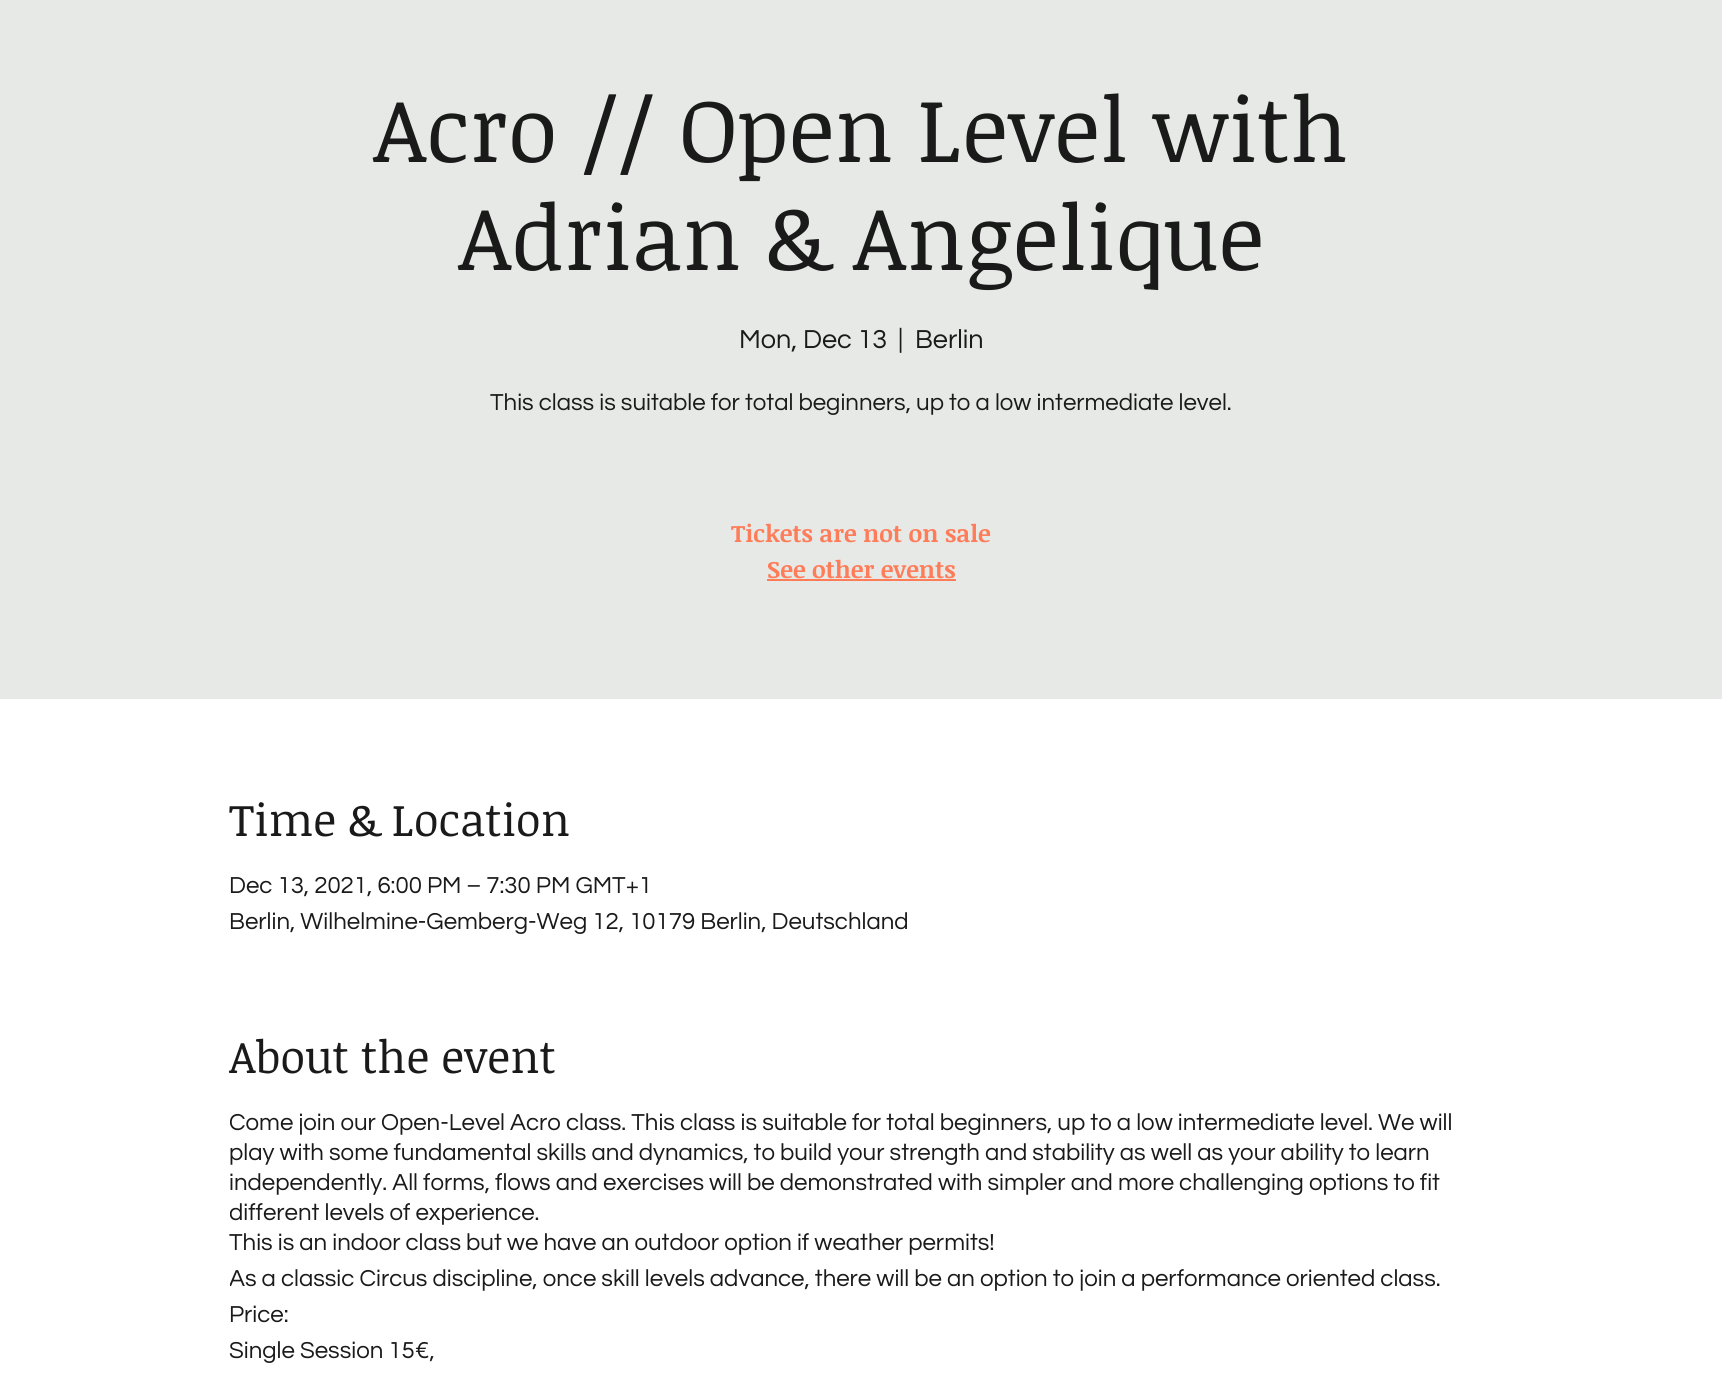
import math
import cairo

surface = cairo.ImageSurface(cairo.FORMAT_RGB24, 1722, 1379)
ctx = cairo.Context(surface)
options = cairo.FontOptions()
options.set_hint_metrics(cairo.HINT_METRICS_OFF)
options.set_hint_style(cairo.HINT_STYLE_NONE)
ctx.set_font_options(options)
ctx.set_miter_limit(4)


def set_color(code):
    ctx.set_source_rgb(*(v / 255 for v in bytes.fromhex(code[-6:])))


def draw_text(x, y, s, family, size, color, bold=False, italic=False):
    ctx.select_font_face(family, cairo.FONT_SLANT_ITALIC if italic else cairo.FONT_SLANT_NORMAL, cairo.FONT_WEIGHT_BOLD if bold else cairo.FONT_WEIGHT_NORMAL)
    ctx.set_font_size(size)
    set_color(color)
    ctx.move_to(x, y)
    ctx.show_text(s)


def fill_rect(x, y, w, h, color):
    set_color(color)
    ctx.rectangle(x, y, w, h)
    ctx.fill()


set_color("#ffffff")
ctx.paint()
fill_rect(0, 0, 1722, 699, "#e6e9e6")
draw_text(373, 162, "Acro // Open Level with", "Noticia Text", 90, "#1a1a1a")
draw_text(458, 270, "Adrian & Angelique", "Noticia Text", 90, "#1a1a1a")
draw_text(739, 348, "Mon, Dec 13", "Questrial", 27, "#1a1a1a")
draw_text(898, 348, "|", "Questrial", 27, "#1a1a1a")
draw_text(915, 348, "Berlin", "Questrial", 27, "#1a1a1a")
draw_text(490, 410, "This class is suitable for total beginners, up to a low intermediate level.", "Questrial", 24, "#1a1a1a")
draw_text(731, 542, "Tickets are not on sale", "Noticia Text", 24, "#ff7c59", bold=True)
draw_text(767, 578, "See other events", "Noticia Text", 24, "#ff7c59", bold=True)
fill_rect(767, 579, 189, 2, "#ff7c59")
draw_text(229, 836, "Time & Location", "Noticia Text", 45, "#1a1a1a")
draw_text(229, 893, "Dec 13, 2021, 6:00 PM – 7:30 PM GMT+1", "Questrial", 24, "#1a1a1a")
draw_text(229, 929, "Berlin, Wilhelmine-Gemberg-Weg 12, 10179 Berlin, Deutschland", "Questrial", 24, "#1a1a1a")
draw_text(229, 1073, "About the event", "Noticia Text", 45, "#1a1a1a")
ctx.save()
ctx.rectangle(230, 1107, 1264, 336)
ctx.clip()
draw_text(229, 1130, "Come join our Open-Level Acro class. This class is suitable for total beginners, up to a low intermediate level. We will", "Questrial", 24, "#1a1a1a")
ctx.restore()
draw_text(229, 1160, "play with some fundamental skills and dynamics, to build your strength and stability as well as your ability to learn", "Questrial", 24, "#1a1a1a")
draw_text(229, 1190, "independently. All forms, flows and exercises will be demonstrated with simpler and more challenging options to fit", "Questrial", 24, "#1a1a1a")
ctx.save()
ctx.rectangle(230, 1107, 1264, 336)
ctx.clip()
draw_text(229, 1220, "different levels of experience.", "Questrial", 24, "#1a1a1a")
ctx.restore()
draw_text(229, 1250, "This is an indoor class but we have an outdoor option if weather permits!", "Questrial", 24, "#1a1a1a")
ctx.save()
ctx.rectangle(230, 1107, 1264, 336)
ctx.clip()
draw_text(229, 1286, "As a classic Circus discipline, once skill levels advance, there will be an option to join a performance oriented class.", "Questrial", 24, "#1a1a1a")
ctx.restore()
draw_text(229, 1322, "Price:", "Questrial", 24, "#1a1a1a")
draw_text(229, 1358, "Single Session 15€,", "Questrial", 24, "#1a1a1a")
surface.write_to_png("output.png")
